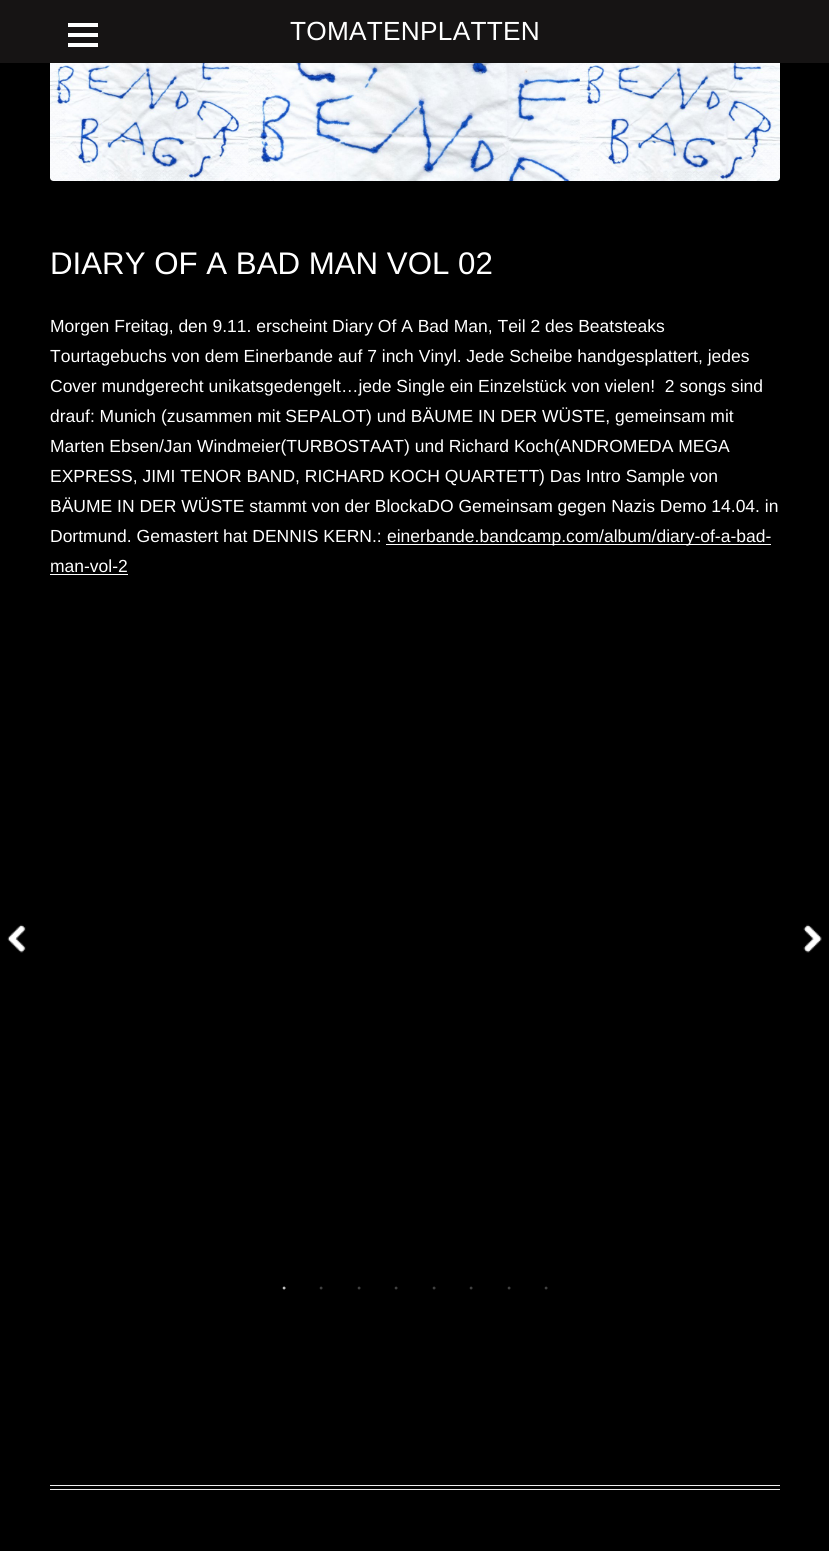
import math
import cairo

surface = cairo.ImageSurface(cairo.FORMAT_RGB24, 829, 1551)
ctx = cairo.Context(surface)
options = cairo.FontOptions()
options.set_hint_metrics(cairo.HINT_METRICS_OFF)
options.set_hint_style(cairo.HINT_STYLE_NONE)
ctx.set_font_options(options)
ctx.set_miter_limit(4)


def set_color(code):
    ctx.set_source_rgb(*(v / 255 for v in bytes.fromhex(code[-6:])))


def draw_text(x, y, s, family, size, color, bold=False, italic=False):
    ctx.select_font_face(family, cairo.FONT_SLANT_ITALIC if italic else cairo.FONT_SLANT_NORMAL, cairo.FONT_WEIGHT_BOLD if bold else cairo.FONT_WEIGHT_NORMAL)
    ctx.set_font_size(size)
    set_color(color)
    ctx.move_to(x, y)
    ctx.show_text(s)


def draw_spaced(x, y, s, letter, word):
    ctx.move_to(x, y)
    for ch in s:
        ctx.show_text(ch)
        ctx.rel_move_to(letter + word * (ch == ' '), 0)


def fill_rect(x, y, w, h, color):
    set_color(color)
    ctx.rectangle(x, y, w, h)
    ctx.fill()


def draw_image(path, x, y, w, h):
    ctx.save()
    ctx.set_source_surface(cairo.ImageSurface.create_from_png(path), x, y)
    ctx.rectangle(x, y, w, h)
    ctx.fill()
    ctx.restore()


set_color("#000000")
ctx.paint()
fill_rect(0, 0, 829, 63, "#161414")
fill_rect(68, 23, 30, 4, "#ffffff")
fill_rect(68, 33, 30, 4, "#ffffff")
fill_rect(68, 43, 30, 4, "#ffffff")
ctx.select_font_face("Liberation Sans")
ctx.set_font_size(26.25)
draw_spaced(290, 40, "TOMATENPLATTEN", 0.25, 0)
draw_image("assets/img1.png", 50, 63, 730, 118)
fill_rect(50, 1485, 730, 1, "#ededed")
fill_rect(50, 1489, 730, 1, "#ededed")
draw_text(50, 274, "DIARY OF A BAD MAN VOL 02", "Liberation Sans", 31.25, "#ffffff")
draw_text(50, 332, "Morgen Freitag, den 9.11. erscheint Diary Of A Bad Man, Teil 2 des Beatsteaks", "Liberation Sans", 17.5, "#ffffff")
draw_text(50, 362, "Tourtagebuchs von dem Einerbande auf 7 inch Vinyl. Jede Scheibe handgesplattert, jedes", "Liberation Sans", 17.5, "#ffffff")
draw_text(50, 392, "Cover mundgerecht unikatsgedengelt…jede Single ein Einzelstück von vielen!  2 songs sind", "Liberation Sans", 17.5, "#ffffff")
draw_text(50, 422, "drauf: Munich (zusammen mit SEPALOT) und BÄUME IN DER WÜSTE, gemeinsam mit", "Liberation Sans", 17.5, "#ffffff")
draw_text(50, 452, "Marten Ebsen/Jan Windmeier(TURBOSTAAT) und Richard Koch(ANDROMEDA MEGA", "Liberation Sans", 17.5, "#ffffff")
draw_text(50, 482, "EXPRESS, JIMI TENOR BAND, RICHARD KOCH QUARTETT) Das Intro Sample von", "Liberation Sans", 17.5, "#ffffff")
draw_text(50, 512, "BÄUME IN DER WÜSTE stammt von der BlockaDO Gemeinsam gegen Nazis Demo 14.04. in", "Liberation Sans", 17.5, "#ffffff")
draw_text(50, 542, "Dortmund. Gemastert hat DENNIS KERN.:", "Liberation Sans", 17.5, "#ffffff")
fill_rect(386, 544, 385, 1, "#ffffff")
draw_text(387, 542, "einerbande.bandcamp.com/album/diary-of-a-bad-", "Liberation Sans", 17.5, "#ffffff")
draw_text(50, 572, "man-vol-2", "Liberation Sans", 17.5, "#ffffff")
fill_rect(50, 574, 78, 1, "#ffffff")
draw_image("assets/img2.png", 7, 924, 19, 29)
draw_image("assets/img3.png", 803, 924, 19, 29)
draw_text(282, 1292, "•", "Liberation Serif", 12, "#bfbfbf")
draw_text(319, 1292, "•", "Liberation Serif", 12, "#404040")
draw_text(357, 1292, "•", "Liberation Serif", 12, "#404040")
draw_text(394, 1292, "•", "Liberation Serif", 12, "#404040")
draw_text(432, 1292, "•", "Liberation Serif", 12, "#404040")
draw_text(469, 1292, "•", "Liberation Serif", 12, "#404040")
draw_text(507, 1292, "•", "Liberation Serif", 12, "#404040")
draw_text(544, 1292, "•", "Liberation Serif", 12, "#404040")
surface.write_to_png("output.png")
